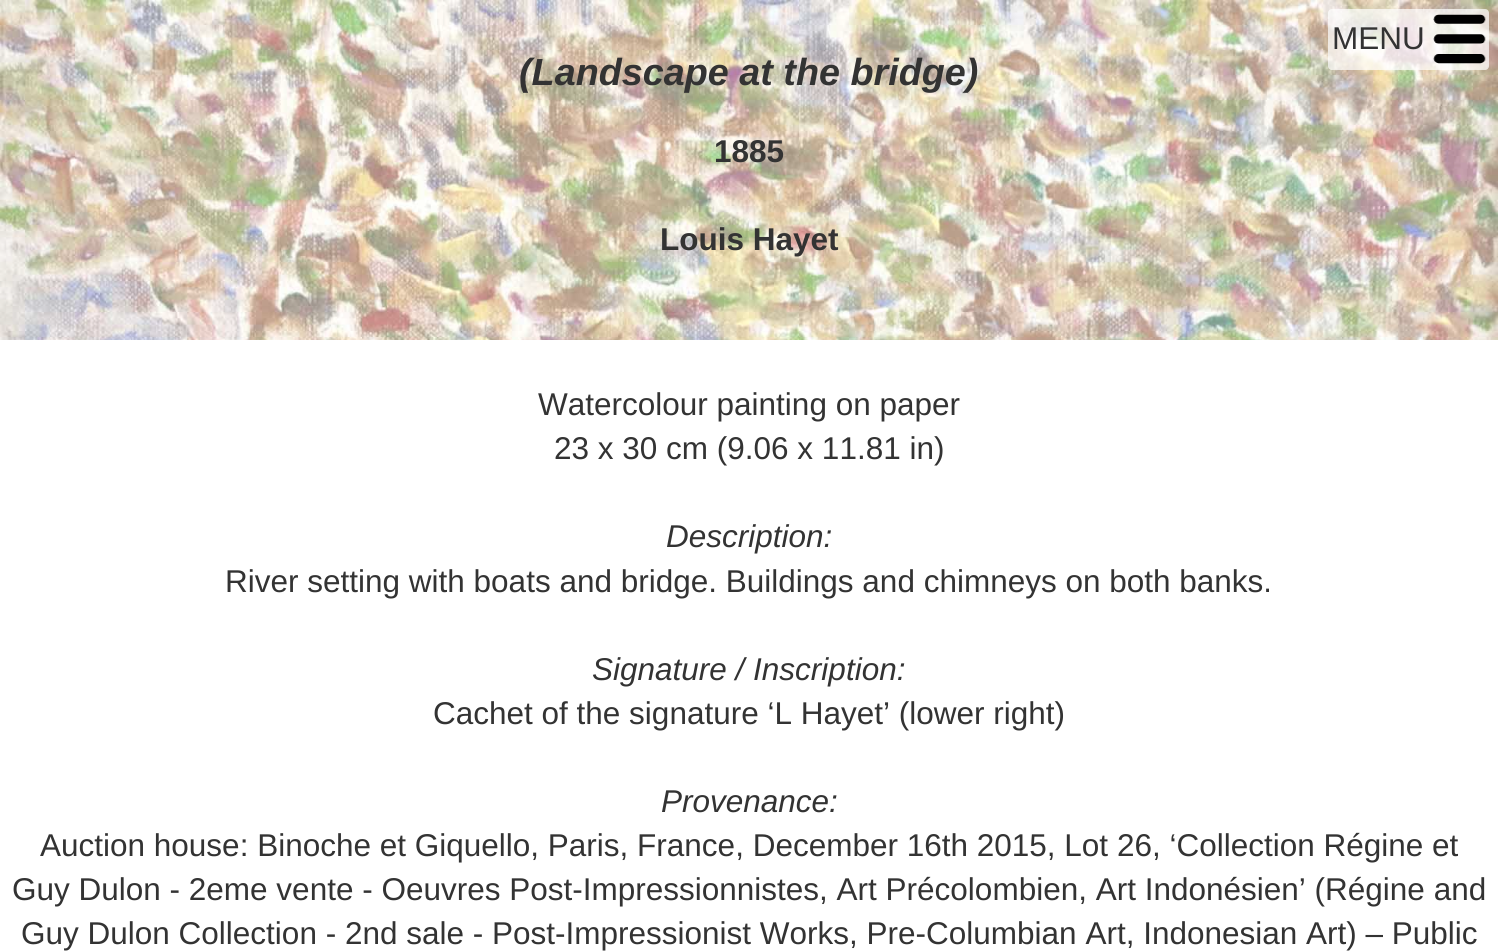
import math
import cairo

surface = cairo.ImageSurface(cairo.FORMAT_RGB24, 1498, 951)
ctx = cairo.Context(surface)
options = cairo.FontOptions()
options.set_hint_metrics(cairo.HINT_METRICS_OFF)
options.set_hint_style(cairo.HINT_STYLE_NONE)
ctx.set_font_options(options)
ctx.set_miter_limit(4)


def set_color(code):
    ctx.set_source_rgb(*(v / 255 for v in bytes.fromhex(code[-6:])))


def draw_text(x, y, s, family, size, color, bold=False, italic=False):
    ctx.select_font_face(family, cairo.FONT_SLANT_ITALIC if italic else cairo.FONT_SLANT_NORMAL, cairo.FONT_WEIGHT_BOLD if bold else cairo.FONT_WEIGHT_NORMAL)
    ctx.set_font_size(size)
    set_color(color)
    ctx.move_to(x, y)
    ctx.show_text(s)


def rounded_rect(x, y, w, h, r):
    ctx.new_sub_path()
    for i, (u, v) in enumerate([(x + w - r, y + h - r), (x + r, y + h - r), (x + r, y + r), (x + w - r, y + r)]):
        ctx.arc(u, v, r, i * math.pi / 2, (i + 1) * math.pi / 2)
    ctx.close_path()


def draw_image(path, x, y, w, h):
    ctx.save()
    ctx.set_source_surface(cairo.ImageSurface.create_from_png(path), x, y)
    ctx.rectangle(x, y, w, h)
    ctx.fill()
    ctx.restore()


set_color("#ffffff")
ctx.paint()
draw_image("assets/img1.png", 0, 0, 1498, 340)
ctx.set_source_rgba(1, 1, 1, 0.7)
rounded_rect(1328, 9, 161, 61, 4)
ctx.fill()
draw_text(1332, 49, "MENU", "Liberation Sans", 31.5, "#333333")
draw_image("assets/img2.png", 1433, 14, 53, 50)
draw_text(519, 85, "(Landscape at the bridge)", "Liberation Sans", 37.75, "#333333", bold=True, italic=True)
draw_text(714, 162, "1885", "Liberation Sans", 31.5, "#333333", bold=True)
draw_text(660, 250, "Louis Hayet", "Liberation Sans", 31.5, "#333333", bold=True)
draw_text(538, 415, "Watercolour painting on paper", "Liberation Sans", 31.5, "#333333")
draw_text(554, 459, "23 x 30 cm (9.06 x 11.81 in)", "Liberation Sans", 31.5, "#333333")
draw_text(666, 547, "Description:", "Liberation Sans", 31.5, "#333333", italic=True)
draw_text(225, 592, "River setting with boats and bridge. Buildings and chimneys on both banks.", "Liberation Sans", 31.5, "#333333")
draw_text(592, 680, "Signature / Inscription:", "Liberation Sans", 31.5, "#333333", italic=True)
draw_text(433, 724, "Cachet of the signature ‘L Hayet’ (lower right)", "Liberation Sans", 31.5, "#333333")
draw_text(661, 812, "Provenance:", "Liberation Sans", 31.5, "#333333", italic=True)
draw_text(40, 856, "Auction house: Binoche et Giquello, Paris, France, December 16th 2015, Lot 26, ‘Collection Régine et", "Liberation Sans", 31.5, "#333333")
draw_text(12, 900, "Guy Dulon - 2eme vente - Oeuvres Post-Impressionnistes, Art Précolombien, Art Indonésien’ (Régine and", "Liberation Sans", 31.5, "#333333")
draw_text(21, 944, "Guy Dulon Collection - 2nd sale - Post-Impressionist Works, Pre-Columbian Art, Indonesian Art) – Public", "Liberation Sans", 31.5, "#333333")
surface.write_to_png("output.png")
